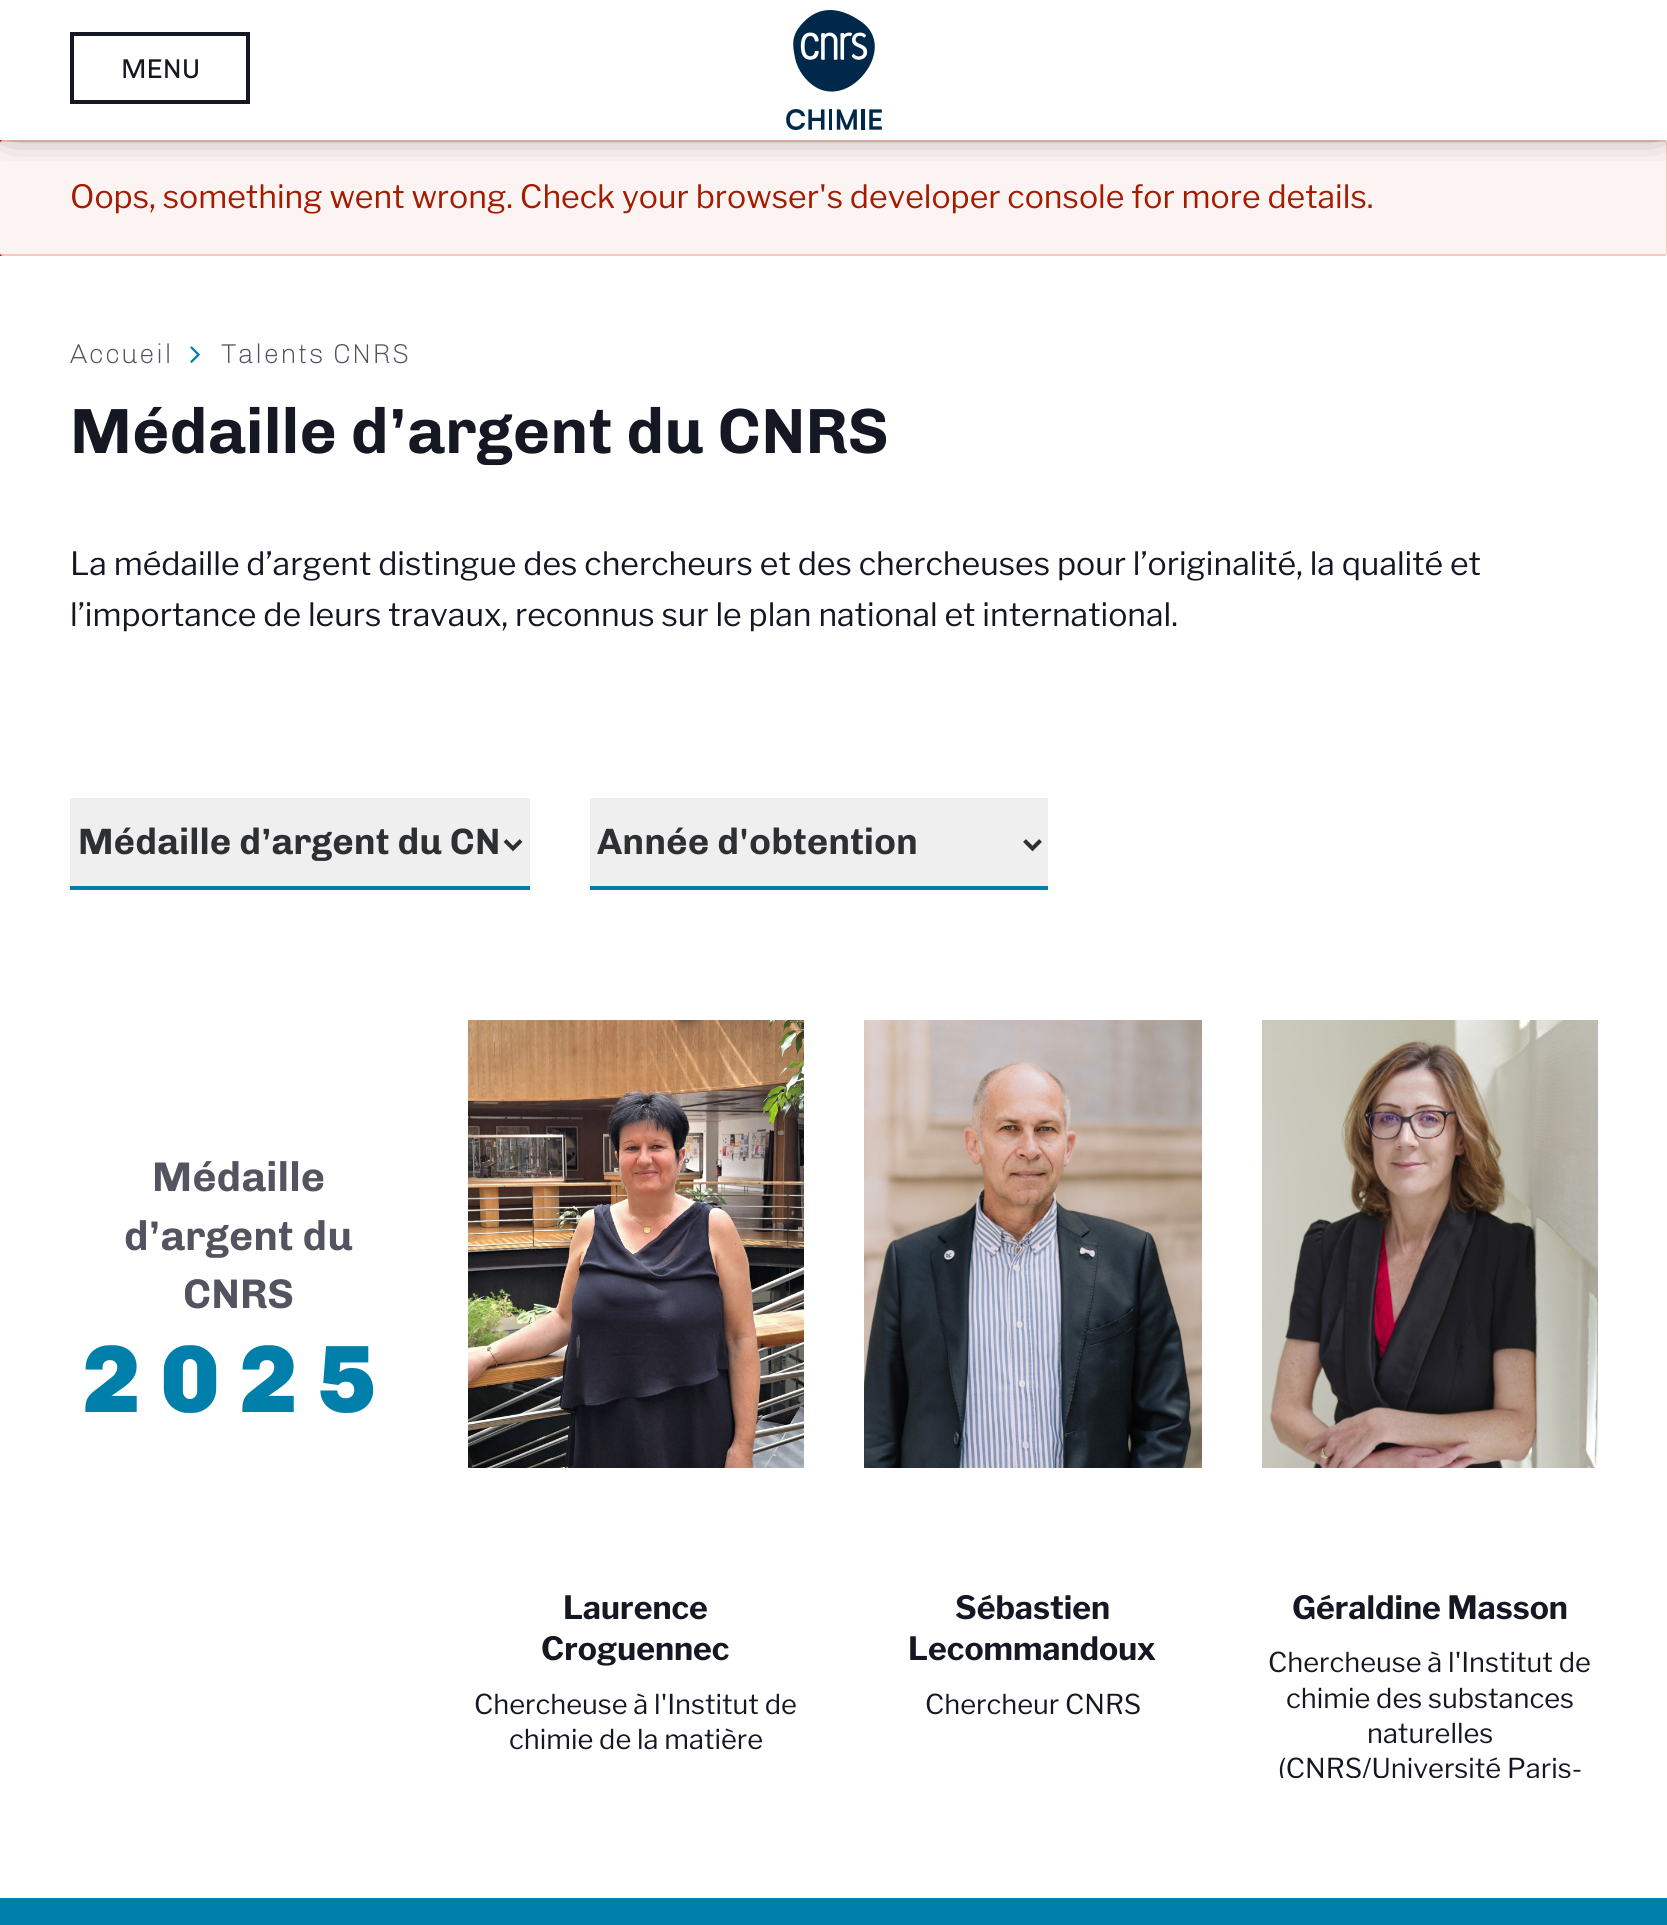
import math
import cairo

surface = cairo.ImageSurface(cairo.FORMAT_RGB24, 1667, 1925)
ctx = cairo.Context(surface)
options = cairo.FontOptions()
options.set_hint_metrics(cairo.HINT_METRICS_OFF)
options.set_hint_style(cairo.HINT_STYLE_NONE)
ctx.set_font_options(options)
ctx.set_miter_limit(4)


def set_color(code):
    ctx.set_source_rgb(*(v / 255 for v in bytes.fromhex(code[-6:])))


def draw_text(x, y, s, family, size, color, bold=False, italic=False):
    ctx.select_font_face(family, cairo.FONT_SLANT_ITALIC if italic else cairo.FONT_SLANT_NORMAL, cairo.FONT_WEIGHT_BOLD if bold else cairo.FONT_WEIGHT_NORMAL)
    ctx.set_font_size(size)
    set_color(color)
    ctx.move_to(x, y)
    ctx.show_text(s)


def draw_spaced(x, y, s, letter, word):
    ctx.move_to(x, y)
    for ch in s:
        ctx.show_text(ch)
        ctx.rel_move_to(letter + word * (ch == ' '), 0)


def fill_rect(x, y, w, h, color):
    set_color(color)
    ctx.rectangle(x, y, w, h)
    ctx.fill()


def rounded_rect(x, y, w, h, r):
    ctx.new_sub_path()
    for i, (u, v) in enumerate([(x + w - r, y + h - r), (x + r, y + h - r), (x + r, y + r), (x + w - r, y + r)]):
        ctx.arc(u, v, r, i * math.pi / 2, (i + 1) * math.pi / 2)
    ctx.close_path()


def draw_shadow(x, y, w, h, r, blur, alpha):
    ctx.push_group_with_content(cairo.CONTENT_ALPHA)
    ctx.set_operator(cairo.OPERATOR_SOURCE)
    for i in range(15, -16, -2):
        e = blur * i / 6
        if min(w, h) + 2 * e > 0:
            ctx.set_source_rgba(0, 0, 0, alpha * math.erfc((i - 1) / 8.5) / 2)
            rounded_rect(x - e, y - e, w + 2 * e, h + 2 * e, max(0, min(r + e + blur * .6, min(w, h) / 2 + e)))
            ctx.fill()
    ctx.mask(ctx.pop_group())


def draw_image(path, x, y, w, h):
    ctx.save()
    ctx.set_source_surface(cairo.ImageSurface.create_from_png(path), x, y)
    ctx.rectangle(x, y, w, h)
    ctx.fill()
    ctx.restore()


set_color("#ffffff")
ctx.paint()
set_color("#e62600")
ctx.new_path()
ctx.move_to(-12, 140)
ctx.curve_to(-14, 140, -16, 142, -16, 144)
ctx.line_to(-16, 252)
ctx.curve_to(-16, 254, -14, 256, -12, 256)
ctx.line_to(4, 256)
ctx.curve_to(2, 256, 0, 254, 0, 252)
ctx.line_to(0, 144)
ctx.curve_to(0, 142, 2, 140, 4, 140)
ctx.close_path()
ctx.fill()
set_color("#fcf4f2")
rounded_rect(0, 140, 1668, 116, 4)
ctx.fill()
fill_rect(2, 140, 1664, 2, "#f9c9bf")
fill_rect(1666, 142, 1, 112, "#f9c9bf")
ctx.save()
ctx.rectangle(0, 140, 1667, 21)
ctx.clip()
set_color("#000000")
draw_shadow(10, 0, 1648, 120, 0, 20, 1)
ctx.restore()
ctx.rectangle(72, 34, 176, 68)
set_color("#151723")
ctx.set_line_width(4)
ctx.stroke()
draw_text(121, 78, "MENU", "Chivo", 27.25, "#151723")
draw_image("assets/img1.png", 786, 10, 96, 120)
fill_rect(2, 254, 1664, 2, "#f9c9bf")
draw_text(70, 208, "Oops, something went wrong. Check your browser's developer console for more details.", "Libre Franklin Thin", 32, "#a51b00")
ctx.select_font_face("Chivo Light")
ctx.set_font_size(27.25)
set_color("#535460")
draw_spaced(70, 363, "Accueil", 1.4, 0)
draw_image("assets/img2.png", 190, 346, 10, 17)
draw_spaced(221, 363, "Talents CNRS", 1.4, 0)
draw_text(70, 453, "Médaille d’argent du CNRS", "Chivo", 64, "#151723", bold=True)
draw_text(70, 575, "La médaille d’argent distingue des chercheurs et des chercheuses pour l’originalité, la qualité et", "Libre Franklin Thin", 32, "#151723")
draw_text(70, 626, "l’importance de leurs travaux, reconnus sur le plan national et international.", "Libre Franklin Thin", 32, "#151723")
fill_rect(70, 798, 460, 88, "#efefef")
fill_rect(70, 886, 460, 4, "#007faa")
ctx.new_path()
ctx.move_to(505, 840.5)
ctx.line_to(513, 848.5)
ctx.line_to(521, 840.5)
set_color("#2e2f32")
ctx.stroke()
ctx.save()
ctx.rectangle(78, 818, 420, 48)
ctx.clip()
draw_text(78, 854, "Médaille d’argent du CN", "Chivo", 36.75, "#2e2f32", bold=True)
ctx.restore()
fill_rect(590, 798, 458, 88, "#efefef")
fill_rect(590, 886, 458, 4, "#007faa")
ctx.new_path()
ctx.move_to(1024.5, 840.5)
ctx.line_to(1032.5, 848.5)
ctx.line_to(1040.5, 840.5)
set_color("#2e2f32")
ctx.stroke()
draw_text(597, 854, "Année d'obtention", "Chivo", 36.75, "#2e2f32", bold=True)
draw_text(152, 1191, "Médaille", "Chivo", 41.5, "#535460", bold=True)
draw_text(124, 1250, "d’argent du", "Chivo", 41.5, "#535460", bold=True)
draw_text(183, 1308, "CNRS", "Chivo", 41.5, "#535460", bold=True)
ctx.select_font_face("Chivo Black")
ctx.set_font_size(96)
set_color("#007faa")
draw_spaced(82, 1412, "2025", 19.5, 0)
draw_image("assets/img3.png", 468, 1020, 336, 448)
draw_text(563, 1619, "Laurence", "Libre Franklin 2 Thin", 32, "#151723")
draw_text(541, 1660, "Croguennec", "Libre Franklin 2 Thin", 32, "#151723")
draw_text(474, 1714, "Chercheuse à l'Institut de", "Libre Franklin Thin", 27.25, "#151723")
draw_text(509, 1749, "chimie de la matière", "Libre Franklin Thin", 27.25, "#151723")
draw_image("assets/img4.png", 864, 1020, 338, 448)
draw_text(955, 1619, "Sébastien", "Libre Franklin 2 Thin", 32, "#151723")
draw_text(908, 1660, "Lecommandoux", "Libre Franklin 2 Thin", 32, "#151723")
draw_text(925, 1714, "Chercheur CNRS", "Libre Franklin Thin", 27.25, "#151723")
draw_image("assets/img5.png", 1262, 1020, 336, 448)
draw_text(1292, 1619, "Géraldine Masson", "Libre Franklin 2 Thin", 32, "#151723")
draw_text(1268, 1672, "Chercheuse à l'Institut de", "Libre Franklin Thin", 27.25, "#151723")
draw_text(1286, 1708, "chimie des substances", "Libre Franklin Thin", 27.25, "#151723")
draw_text(1367, 1743, "naturelles", "Libre Franklin Thin", 27.25, "#151723")
ctx.save()
ctx.rectangle(40, 1020, 1588, 758)
ctx.clip()
draw_text(1278, 1778, "(CNRS/Université Paris-", "Libre Franklin Thin", 27.25, "#151723")
ctx.restore()
fill_rect(0, 1898, 1667, 27, "#007faa")
surface.write_to_png("output.png")
